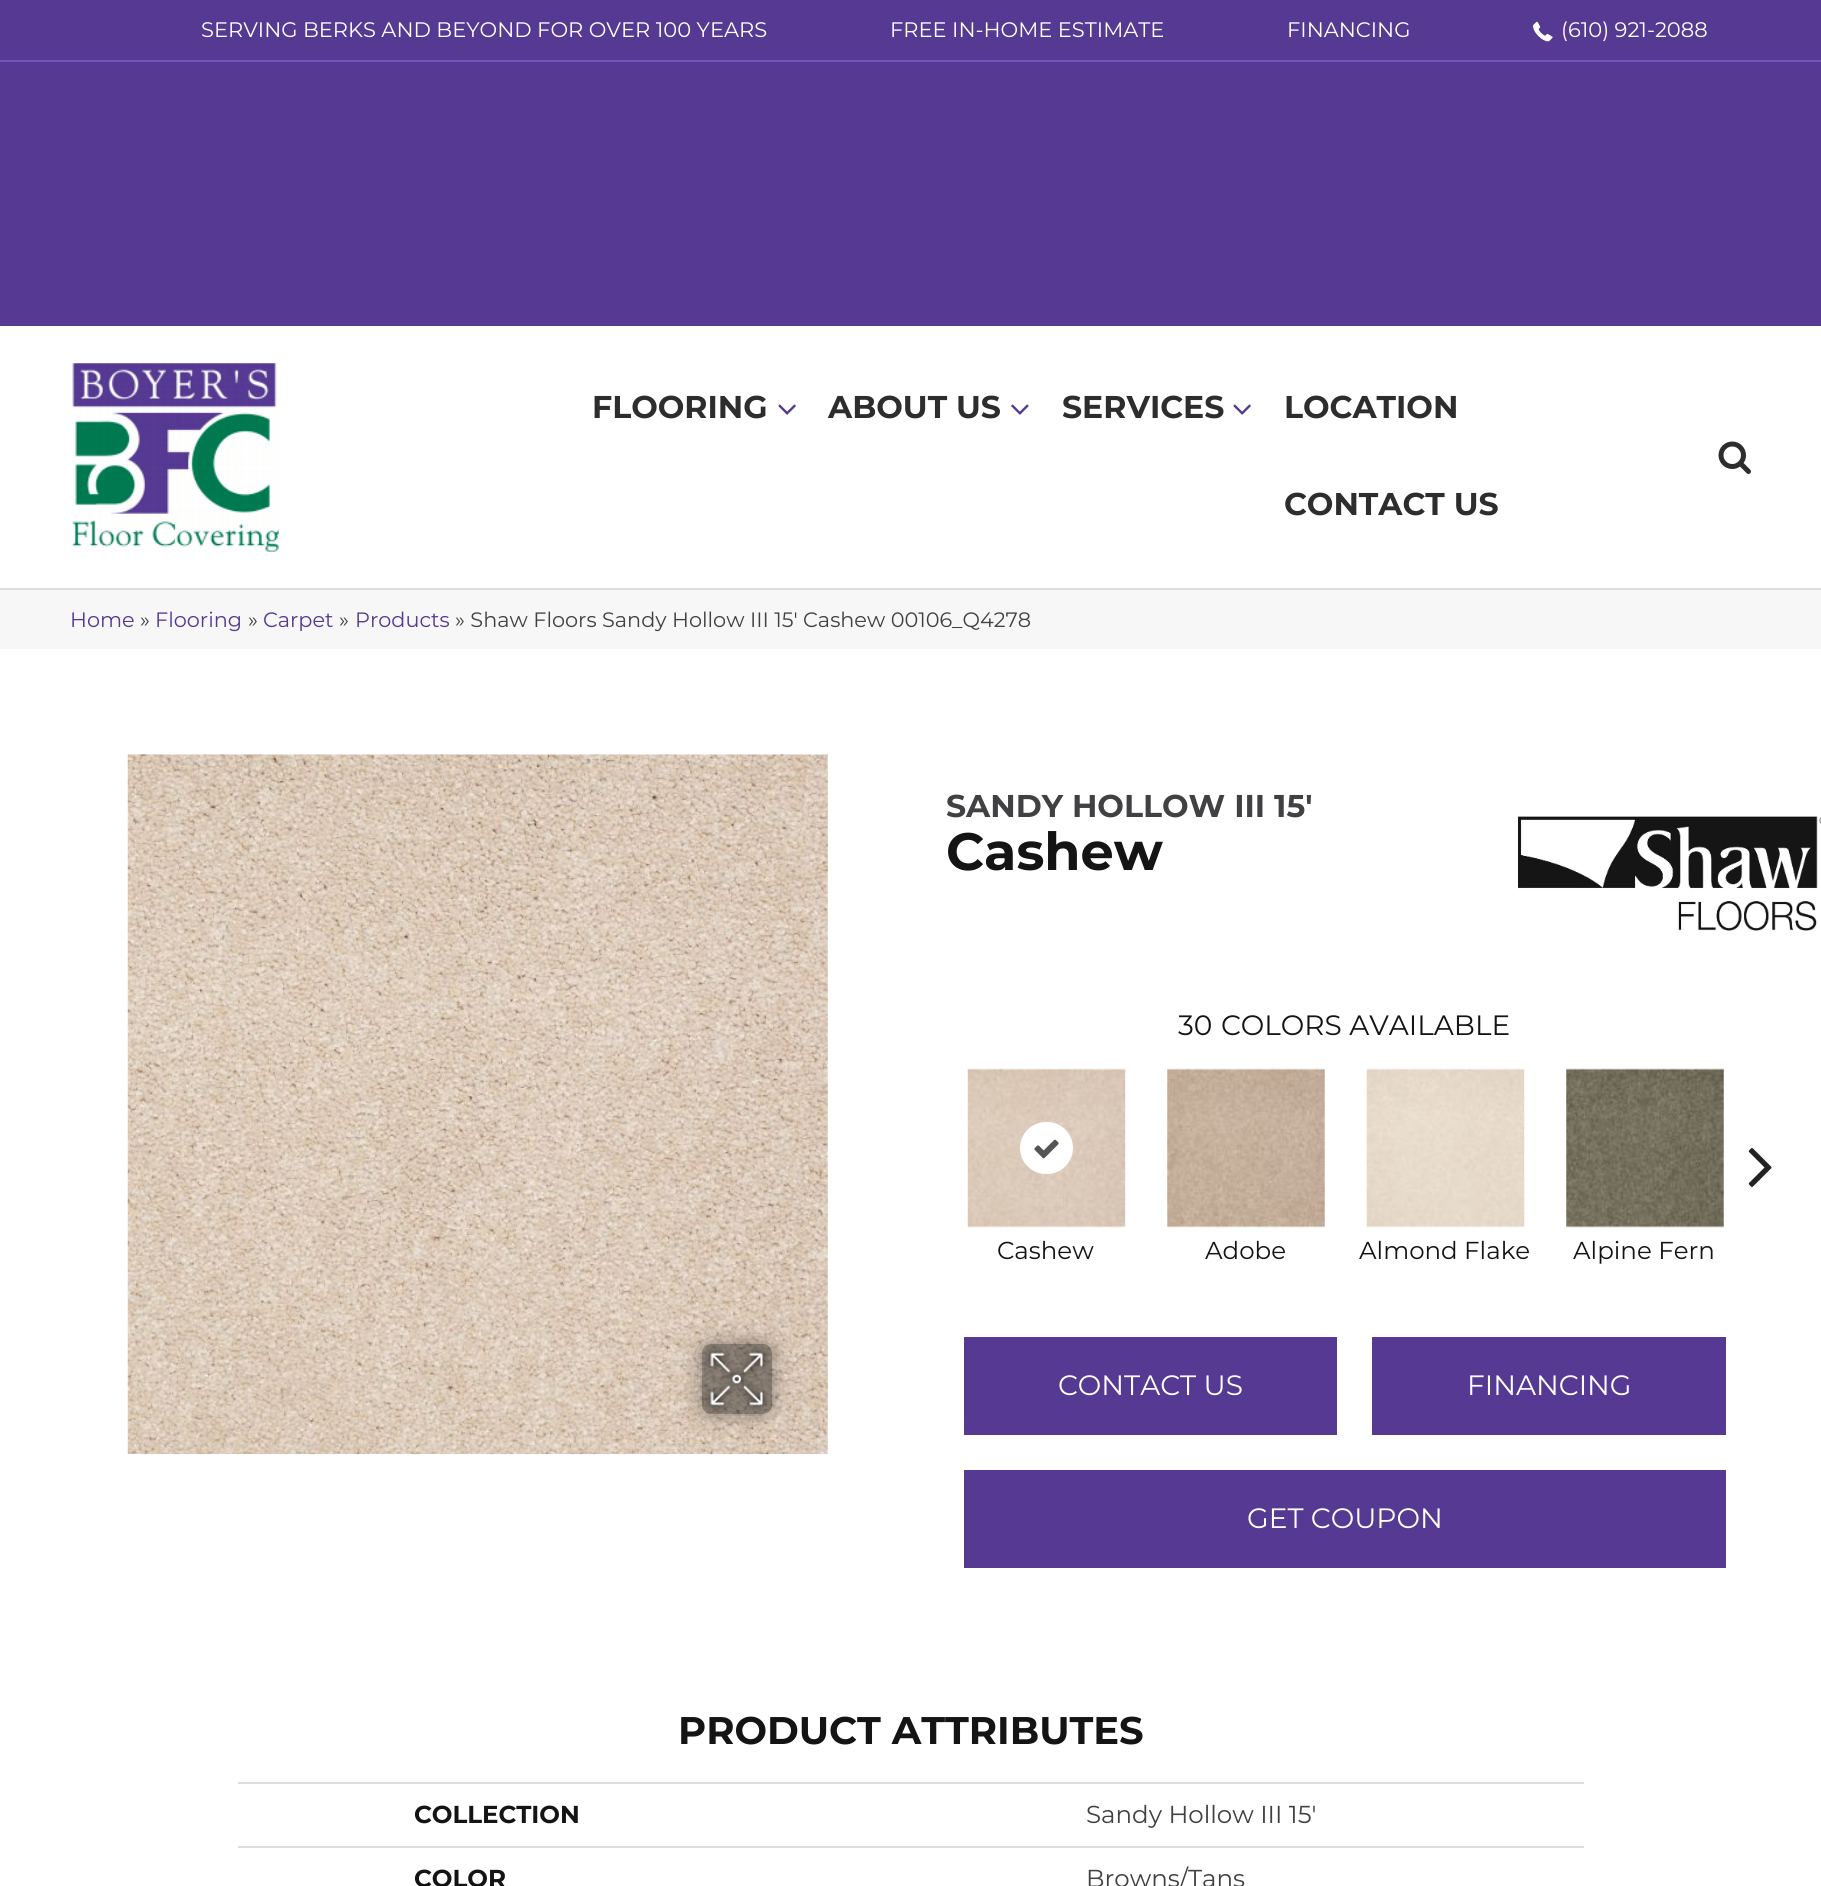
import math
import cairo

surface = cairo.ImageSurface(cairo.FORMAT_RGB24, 1821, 1886)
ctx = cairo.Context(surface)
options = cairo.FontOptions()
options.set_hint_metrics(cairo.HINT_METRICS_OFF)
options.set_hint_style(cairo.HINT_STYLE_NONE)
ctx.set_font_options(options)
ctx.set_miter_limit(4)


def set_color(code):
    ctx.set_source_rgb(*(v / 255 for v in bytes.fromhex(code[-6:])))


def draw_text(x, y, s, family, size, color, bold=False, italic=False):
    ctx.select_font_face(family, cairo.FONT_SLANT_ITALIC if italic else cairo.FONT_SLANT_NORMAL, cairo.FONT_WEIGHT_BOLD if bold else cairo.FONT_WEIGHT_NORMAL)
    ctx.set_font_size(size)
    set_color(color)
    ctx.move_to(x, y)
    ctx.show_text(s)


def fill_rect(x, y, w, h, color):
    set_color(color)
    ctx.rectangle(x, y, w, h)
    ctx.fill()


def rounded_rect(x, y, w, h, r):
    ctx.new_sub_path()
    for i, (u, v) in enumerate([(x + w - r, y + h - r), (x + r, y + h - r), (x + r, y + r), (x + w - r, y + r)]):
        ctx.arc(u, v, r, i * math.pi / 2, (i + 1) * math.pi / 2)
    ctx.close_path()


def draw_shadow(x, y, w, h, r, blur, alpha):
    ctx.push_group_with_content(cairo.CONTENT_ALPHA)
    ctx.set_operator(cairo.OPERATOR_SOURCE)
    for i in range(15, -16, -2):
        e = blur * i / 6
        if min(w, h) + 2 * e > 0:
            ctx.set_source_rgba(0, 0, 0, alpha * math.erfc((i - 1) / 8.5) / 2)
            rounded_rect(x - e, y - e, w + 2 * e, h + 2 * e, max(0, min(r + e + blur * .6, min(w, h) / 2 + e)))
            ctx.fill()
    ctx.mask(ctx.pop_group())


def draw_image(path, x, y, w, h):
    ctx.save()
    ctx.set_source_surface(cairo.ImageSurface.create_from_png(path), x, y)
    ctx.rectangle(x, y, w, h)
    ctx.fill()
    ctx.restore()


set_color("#553992")
ctx.paint()
fill_rect(0, 60, 1821, 2, "#7352bb")
draw_text(201, 37, "SERVING BERKS AND BEYOND FOR OVER 100 YEARS", "Montserrat", 21, "#ffffff")
draw_text(890, 37, "FREE IN-HOME ESTIMATE", "Montserrat", 21, "#ffffff")
draw_text(1287, 37, "FINANCING", "Montserrat", 21, "#ffffff")
draw_image("assets/img1.png", 1533, 21, 20, 21)
draw_text(1561, 37, "(610) 921-2088", "Montserrat", 21, "#ffffff")
fill_rect(0, 326, 1821, 262, "#ffffff")
fill_rect(0, 588, 1821, 2, "#dedede")
draw_image("assets/img2.png", 72, 363, 207, 189)
draw_text(592, 418, "FLOORING", "Montserrat", 31.5, "#2d2d2d", bold=True)
draw_image("assets/img3.png", 778, 404, 18, 11)
draw_text(828, 418, "ABOUT US", "Montserrat", 31.5, "#2d2d2d", bold=True)
draw_image("assets/img4.png", 1011, 404, 18, 11)
draw_text(1062, 418, "SERVICES", "Montserrat", 31.5, "#2d2d2d", bold=True)
draw_image("assets/img3.png", 1233, 404, 18, 11)
draw_text(1284, 418, "LOCATION", "Montserrat", 31.5, "#2d2d2d", bold=True)
draw_text(1284, 515, "CONTACT US", "Montserrat", 31.5, "#2d2d2d", bold=True)
draw_image("assets/img5.png", 1718, 441, 33, 33)
fill_rect(0, 649, 1821, 1237, "#ffffff")
fill_rect(0, 590, 1821, 59, "#f7f7f7")
draw_text(70, 627, "Home", "Montserrat", 20.8, "#553992")
draw_text(140, 627, "»", "Montserrat", 20.8, "#414042")
draw_text(155, 627, "Flooring", "Montserrat", 20.8, "#553992")
draw_text(248, 627, "»", "Montserrat", 20.8, "#414042")
draw_text(263, 627, "Carpet", "Montserrat", 20.8, "#553992")
draw_text(339, 627, "»", "Montserrat", 20.8, "#414042")
draw_text(355, 627, "Products", "Montserrat", 20.8, "#553992")
draw_text(455, 627, "» Shaw Floors Sandy Hollow III 15′ Cashew 00106_Q4278", "Montserrat", 20.8, "#414042")
draw_image("assets/img6.png", 127, 754, 701, 701)
ctx.save()
ctx.set_fill_rule(cairo.FILL_RULE_EVEN_ODD)
ctx.new_path()
ctx.move_to(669, 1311)
ctx.line_to(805, 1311)
ctx.line_to(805, 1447)
ctx.line_to(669, 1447)
ctx.close_path()
ctx.move_to(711, 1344)
ctx.line_to(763, 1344)
ctx.curve_to(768, 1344, 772, 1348, 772, 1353)
ctx.line_to(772, 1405)
ctx.curve_to(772, 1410, 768, 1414, 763, 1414)
ctx.line_to(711, 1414)
ctx.curve_to(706, 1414, 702, 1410, 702, 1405)
ctx.line_to(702, 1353)
ctx.curve_to(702, 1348, 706, 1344, 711, 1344)
ctx.close_path()
ctx.clip()
set_color("#000000")
draw_shadow(702, 1344, 70, 70, 9, 10.5, 0.41)
ctx.restore()
ctx.set_source_rgba(0, 0, 0, 0.4)
rounded_rect(702, 1344, 70, 70, 9)
ctx.fill()
draw_image("assets/img7.png", 705, 1347, 64, 64)
draw_text(946, 817, "SANDY HOLLOW III 15'", "Montserrat", 31.5, "#414042", bold=True)
draw_text(946, 870, "Cashew", "Montserrat", 52.5, "#141414", bold=True)
draw_image("assets/img8.png", 1518, 816, 303, 115)
draw_text(1178, 1035, "30", "Montserrat", 28, "#141414")
draw_text(1221, 1035, "COLORS AVAILABLE", "Montserrat", 28, "#141414")
draw_image("assets/img9.png", 1748, 1148, 24, 39)
draw_image("assets/img10.png", 967, 1068, 159, 160)
set_color("#ffffff")
rounded_rect(1020, 1122, 53, 52, 26)
ctx.fill()
draw_image("assets/img11.png", 1034, 1139, 25, 20)
draw_text(997, 1259, "Cashew", "Montserrat", 24.5, "#141414")
draw_image("assets/img12.png", 1167, 1068, 158, 160)
draw_text(1205, 1259, "Adobe", "Montserrat", 24.5, "#141414")
draw_image("assets/img13.png", 1366, 1068, 159, 160)
draw_text(1359, 1259, "Almond Flake", "Montserrat", 24.5, "#141414")
draw_image("assets/img14.png", 1566, 1068, 158, 160)
draw_text(1573, 1259, "Alpine Fern", "Montserrat", 24.5, "#141414")
fill_rect(964, 1337, 373, 98, "#553992")
draw_text(1058, 1395, "CONTACT US", "Montserrat", 28, "#ffffff")
fill_rect(1372, 1337, 354, 98, "#553992")
draw_text(1467, 1395, "FINANCING", "Montserrat", 28, "#ffffff")
fill_rect(964, 1470, 762, 98, "#553992")
draw_text(1247, 1528, "GET COUPON", "Montserrat", 28, "#ffffff")
draw_text(678, 1744, "PRODUCT ATTRIBUTES", "Montserrat", 38.5, "#141414", bold=True)
draw_text(414, 1823, "COLLECTION", "Montserrat", 24.5, "#141414", bold=True)
fill_rect(238, 1782, 1346, 2, "#dddddd")
draw_text(1086, 1823, "Sandy Hollow III 15'", "Montserrat", 24.5, "#414042")
draw_text(414, 1887, "COLOR", "Montserrat", 24.5, "#141414", bold=True)
fill_rect(238, 1846, 1346, 2, "#dddddd")
draw_text(1086, 1887, "Browns/Tans", "Montserrat", 24.5, "#414042")
surface.write_to_png("output.png")
